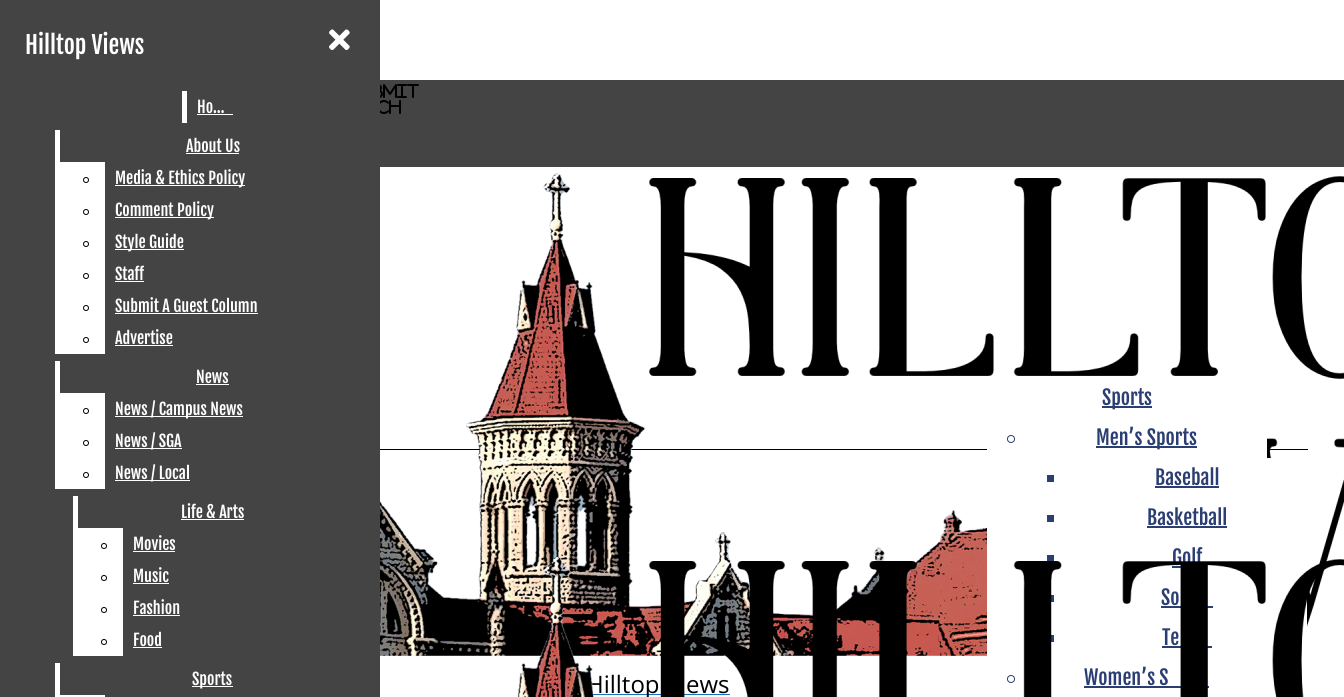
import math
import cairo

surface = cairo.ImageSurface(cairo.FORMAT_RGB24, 1344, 697)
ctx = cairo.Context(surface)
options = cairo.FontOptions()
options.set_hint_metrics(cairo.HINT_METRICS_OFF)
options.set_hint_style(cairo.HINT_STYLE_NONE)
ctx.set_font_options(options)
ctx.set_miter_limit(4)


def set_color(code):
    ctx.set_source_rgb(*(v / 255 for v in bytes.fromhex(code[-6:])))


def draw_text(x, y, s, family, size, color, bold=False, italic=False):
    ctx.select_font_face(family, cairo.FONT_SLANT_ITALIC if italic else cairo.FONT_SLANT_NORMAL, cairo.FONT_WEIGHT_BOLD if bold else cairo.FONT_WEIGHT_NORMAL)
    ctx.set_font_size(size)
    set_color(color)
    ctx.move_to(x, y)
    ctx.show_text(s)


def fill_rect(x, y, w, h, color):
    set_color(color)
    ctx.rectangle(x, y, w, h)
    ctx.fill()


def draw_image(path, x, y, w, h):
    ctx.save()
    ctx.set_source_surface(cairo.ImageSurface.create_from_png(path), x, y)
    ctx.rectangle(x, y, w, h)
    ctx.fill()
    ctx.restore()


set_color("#ffffff")
ctx.paint()
fill_rect(0, 0, 380, 697, "#444444")
draw_text(25, 54, "Hilltop Views", "Fjalla One", 24, "#ffffff")
draw_image("assets/img1.png", 329, 29, 21, 21)
fill_rect(182, 91, 5, 32, "#ffffff")
draw_text(197, 113, "Ho…", "Fjalla One", 16, "#ffffff")
fill_rect(197, 114, 36, 1, "#ffffff")
fill_rect(55, 130, 50, 224, "#ffffff")
fill_rect(60, 130, 45, 32, "#444444")
draw_text(186, 152, "About Us", "Fjalla One", 16, "#ffffff")
fill_rect(186, 153, 53, 1, "#ffffff")
ctx.new_path()
ctx.arc(86, 180, 2.5, 0, 2 * math.pi)
set_color("#000000")
ctx.set_line_width(1)
ctx.stroke()
fill_rect(115, 185, 130, 1, "#ffffff")
draw_text(115, 184, "Media & Ethics Policy", "Fjalla One", 16, "#ffffff")
ctx.new_path()
ctx.arc(86, 212, 2.5, 0, 2 * math.pi)
set_color("#000000")
ctx.stroke()
fill_rect(115, 217, 99, 1, "#ffffff")
draw_text(115, 216, "Comment Policy", "Fjalla One", 16, "#ffffff")
ctx.new_path()
ctx.arc(86, 244, 2.5, 0, 2 * math.pi)
set_color("#000000")
ctx.stroke()
fill_rect(115, 249, 69, 1, "#ffffff")
draw_text(115, 248, "Style Guide", "Fjalla One", 16, "#ffffff")
ctx.new_path()
ctx.arc(86, 276, 2.5, 0, 2 * math.pi)
set_color("#000000")
ctx.stroke()
draw_text(115, 280, "Staff", "Fjalla One", 16, "#ffffff")
fill_rect(115, 281, 29, 1, "#ffffff")
ctx.new_path()
ctx.arc(86, 308, 2.5, 0, 2 * math.pi)
set_color("#000000")
ctx.stroke()
draw_text(115, 312, "Submit A Guest Column", "Fjalla One", 16, "#ffffff")
fill_rect(115, 313, 143, 1, "#ffffff")
ctx.new_path()
ctx.arc(86, 340, 2.5, 0, 2 * math.pi)
set_color("#000000")
ctx.stroke()
draw_text(115, 344, "Advertise", "Fjalla One", 16, "#ffffff")
fill_rect(115, 345, 58, 1, "#ffffff")
fill_rect(55, 361, 50, 128, "#ffffff")
fill_rect(60, 361, 45, 32, "#444444")
draw_text(196, 383, "News", "Fjalla One", 16, "#ffffff")
fill_rect(196, 384, 33, 1, "#ffffff")
ctx.new_path()
ctx.arc(86, 411, 2.5, 0, 2 * math.pi)
set_color("#000000")
ctx.stroke()
fill_rect(115, 416, 128, 1, "#ffffff")
draw_text(115, 415, "News / Campus News", "Fjalla One", 16, "#ffffff")
ctx.new_path()
ctx.arc(86, 443, 2.5, 0, 2 * math.pi)
set_color("#000000")
ctx.stroke()
fill_rect(115, 448, 67, 1, "#ffffff")
draw_text(115, 447, "News / SGA", "Fjalla One", 16, "#ffffff")
ctx.new_path()
ctx.arc(86, 475, 2.5, 0, 2 * math.pi)
set_color("#000000")
ctx.stroke()
fill_rect(115, 480, 75, 1, "#ffffff")
draw_text(115, 479, "News / Local", "Fjalla One", 16, "#ffffff")
fill_rect(73, 496, 50, 160, "#ffffff")
fill_rect(78, 496, 45, 32, "#444444")
draw_text(181, 518, "Life & Arts", "Fjalla One", 16, "#ffffff")
fill_rect(181, 519, 63, 1, "#ffffff")
ctx.new_path()
ctx.arc(104, 546, 2.5, 0, 2 * math.pi)
set_color("#000000")
ctx.stroke()
draw_text(133, 550, "Movies", "Fjalla One", 16, "#ffffff")
fill_rect(133, 551, 42, 1, "#ffffff")
ctx.new_path()
ctx.arc(104, 578, 2.5, 0, 2 * math.pi)
set_color("#000000")
ctx.stroke()
draw_text(133, 582, "Music", "Fjalla One", 16, "#ffffff")
fill_rect(133, 583, 36, 1, "#ffffff")
ctx.new_path()
ctx.arc(104, 610, 2.5, 0, 2 * math.pi)
set_color("#000000")
ctx.stroke()
draw_text(133, 614, "Fashion", "Fjalla One", 16, "#ffffff")
fill_rect(133, 615, 47, 1, "#ffffff")
ctx.new_path()
ctx.arc(104, 642, 2.5, 0, 2 * math.pi)
set_color("#000000")
ctx.stroke()
draw_text(133, 646, "Food", "Fjalla One", 16, "#ffffff")
fill_rect(133, 647, 29, 1, "#ffffff")
fill_rect(55, 663, 50, 34, "#ffffff")
fill_rect(60, 663, 45, 32, "#444444")
fill_rect(192, 686, 41, 1, "#ffffff")
draw_text(192, 685, "Sports", "Fjalla One", 16, "#ffffff")
fill_rect(380, 80, 964, 87, "#444444")
draw_image("assets/img2.png", 380, 84, 39, 14)
draw_image("assets/img3.png", 380, 100, 21, 14)
fill_rect(380, 449, 928, 1, "#000000")
draw_image("assets/img5.png", 380, 173, 964, 483)
fill_rect(987, 438, 280, 218, "#ffffff")
fill_rect(1267, 538, 39, 40, "#ffffff")
fill_rect(1047, 555, 7, 7, "#2b3e73")
draw_text(1172, 565, "Golf", "Fjalla One", 20, "#2b3e73")
fill_rect(1172, 566, 10, 2, "#2b3e73")
fill_rect(1278, 578, 29, 40, "#ffffff")
fill_rect(1047, 595, 7, 7, "#2b3e73")
draw_text(1161, 605, "So", "Fjalla One", 20, "#2b3e73")
fill_rect(1161, 606, 52, 2, "#2b3e73")
fill_rect(1289, 618, 18, 20, "#ffffff")
fill_rect(1047, 635, 7, 7, "#2b3e73")
draw_text(1162, 645, "Te", "Fjalla One", 20, "#2b3e73")
fill_rect(1162, 646, 50, 2, "#2b3e73")
ctx.new_path()
ctx.arc(1011, 679, 3.5, 0, 2 * math.pi)
ctx.stroke()
draw_text(1084, 685, "Women’s S", "Fjalla One", 20, "#2b3e73")
fill_rect(1084, 686, 125, 2, "#2b3e73")
fill_rect(586, 694, 144, 1, "#1670bf")
draw_text(586, 693, "Hilltop", "Open Sans", 24, "#000000")
draw_text(686, 693, "ews", "Open Sans", 24, "#000000")
draw_image("assets/img4.png", 517, 556, 827, 141)
fill_rect(1102, 406, 50, 2, "#2b3e73")
draw_text(1102, 405, "Sports", "Fjalla One", 20, "#2b3e73")
ctx.new_path()
ctx.arc(1011, 439, 3.5, 0, 2 * math.pi)
ctx.stroke()
fill_rect(1096, 446, 101, 2, "#2b3e73")
draw_text(1096, 445, "Men’s Sports", "Fjalla One", 20, "#2b3e73")
fill_rect(1267, 458, 15, 40, "#ffffff")
fill_rect(1047, 475, 7, 7, "#2b3e73")
draw_text(1155, 485, "Baseball", "Fjalla One", 20, "#2b3e73")
fill_rect(1155, 486, 64, 2, "#2b3e73")
fill_rect(1267, 498, 27, 40, "#ffffff")
fill_rect(1047, 515, 7, 7, "#2b3e73")
draw_text(1147, 525, "Basketball", "Fjalla One", 20, "#2b3e73")
fill_rect(1147, 526, 80, 2, "#2b3e73")
surface.write_to_png("output.png")
